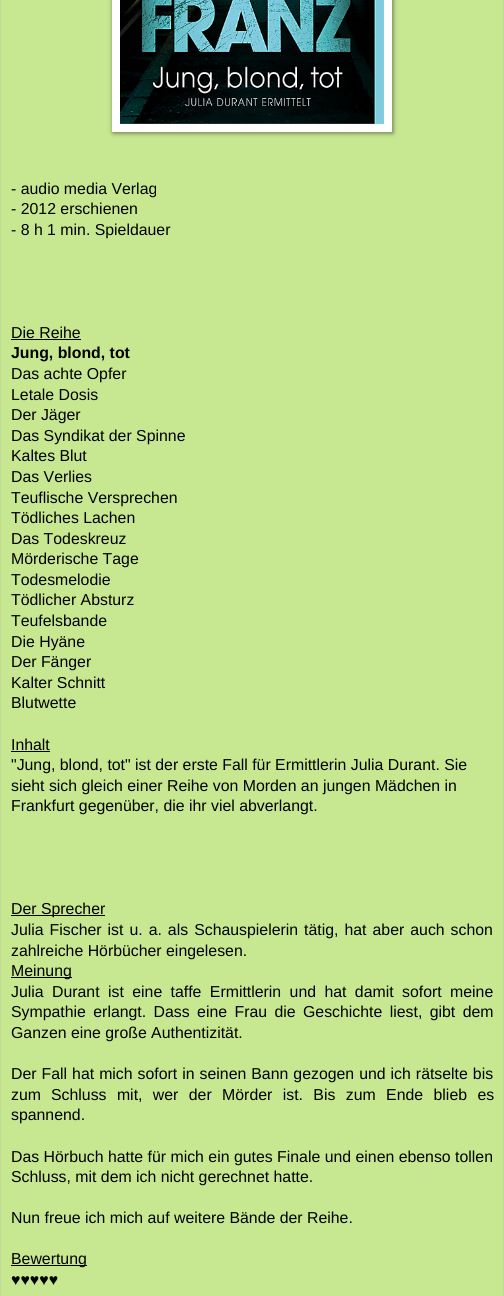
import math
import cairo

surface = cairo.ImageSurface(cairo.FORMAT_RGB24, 504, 1296)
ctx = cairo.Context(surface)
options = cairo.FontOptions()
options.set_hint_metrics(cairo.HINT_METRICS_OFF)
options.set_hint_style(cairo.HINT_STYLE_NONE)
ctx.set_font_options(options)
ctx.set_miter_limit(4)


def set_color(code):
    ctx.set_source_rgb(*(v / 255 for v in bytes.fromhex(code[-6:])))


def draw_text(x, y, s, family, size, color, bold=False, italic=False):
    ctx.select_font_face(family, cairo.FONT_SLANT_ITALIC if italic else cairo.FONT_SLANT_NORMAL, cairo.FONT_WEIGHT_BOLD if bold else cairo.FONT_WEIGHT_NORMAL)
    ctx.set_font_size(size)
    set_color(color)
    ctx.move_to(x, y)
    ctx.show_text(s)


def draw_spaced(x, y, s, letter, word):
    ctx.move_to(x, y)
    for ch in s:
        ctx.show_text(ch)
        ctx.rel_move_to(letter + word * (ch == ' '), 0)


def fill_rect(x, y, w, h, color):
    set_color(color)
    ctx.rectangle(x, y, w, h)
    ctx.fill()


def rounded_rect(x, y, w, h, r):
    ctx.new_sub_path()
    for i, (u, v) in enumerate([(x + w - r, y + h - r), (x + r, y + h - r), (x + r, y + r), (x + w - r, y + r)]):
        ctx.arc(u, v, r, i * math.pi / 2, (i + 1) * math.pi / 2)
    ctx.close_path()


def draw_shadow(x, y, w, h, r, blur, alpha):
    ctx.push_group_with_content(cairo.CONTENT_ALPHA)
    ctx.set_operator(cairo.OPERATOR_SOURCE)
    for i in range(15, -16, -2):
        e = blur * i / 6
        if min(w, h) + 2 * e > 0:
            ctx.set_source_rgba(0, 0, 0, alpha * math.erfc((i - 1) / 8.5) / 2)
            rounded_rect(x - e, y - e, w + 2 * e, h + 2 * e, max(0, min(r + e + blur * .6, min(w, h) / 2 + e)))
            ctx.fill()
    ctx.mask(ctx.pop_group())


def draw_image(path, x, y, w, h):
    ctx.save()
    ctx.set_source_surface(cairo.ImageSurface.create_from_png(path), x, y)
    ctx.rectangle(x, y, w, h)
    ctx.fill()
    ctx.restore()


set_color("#c7e891")
ctx.paint()
ctx.new_path()
ctx.move_to(503.5, -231)
ctx.line_to(503.5, 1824)
set_color("#bccc99")
ctx.set_line_width(1)
ctx.set_dash([1, 1])
ctx.stroke()
ctx.new_path()
ctx.move_to(0.5, -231)
ctx.line_to(0.5, 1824)
ctx.stroke()
set_color("#000000")
draw_shadow(113, -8, 280, 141, 0, 2.5, 0.5)
fill_rect(112, 0, 280, 132, "#ffffff")
draw_image("assets/img1.png", 120, 0, 264, 124)
draw_text(11, 194, "- audio media Verlag", "Liberation Sans", 15.85, "#000000")
draw_text(11, 214, "- 2012 erschienen", "Liberation Sans", 15.85, "#000000")
draw_text(11, 235, "- 8 h 1 min. Spieldauer", "Liberation Sans", 15.85, "#000000")
draw_text(11, 338, "Die Reihe", "Liberation Sans", 15.85, "#000000")
fill_rect(11, 339, 70, 1, "#000000")
draw_text(11, 358, "Jung, blond, tot", "Liberation Sans", 15.85, "#000000", bold=True)
draw_text(11, 379, "Das achte Opfer", "Liberation Sans", 15.85, "#000000")
draw_text(11, 400, "Letale Dosis", "Liberation Sans", 15.85, "#000000")
draw_text(11, 420, "Der Jäger", "Liberation Sans", 15.85, "#000000")
draw_text(11, 441, "Das Syndikat der Spinne", "Liberation Sans", 15.85, "#000000")
draw_text(11, 461, "Kaltes Blut", "Liberation Sans", 15.85, "#000000")
draw_text(11, 482, "Das Verlies", "Liberation Sans", 15.85, "#000000")
draw_text(11, 503, "Teuflische Versprechen", "Liberation Sans", 15.85, "#000000")
draw_text(11, 523, "Tödliches Lachen", "Liberation Sans", 15.85, "#000000")
draw_text(11, 544, "Das Todeskreuz", "Liberation Sans", 15.85, "#000000")
draw_text(11, 564, "Mörderische Tage", "Liberation Sans", 15.85, "#000000")
draw_text(11, 585, "Todesmelodie", "Liberation Sans", 15.85, "#000000")
draw_text(11, 605, "Tödlicher Absturz", "Liberation Sans", 15.85, "#000000")
draw_text(11, 626, "Teufelsbande", "Liberation Sans", 15.85, "#000000")
draw_text(11, 647, "Die Hyäne", "Liberation Sans", 15.85, "#000000")
draw_text(11, 667, "Der Fänger", "Liberation Sans", 15.85, "#000000")
draw_text(11, 688, "Kalter Schnitt", "Liberation Sans", 15.85, "#000000")
draw_text(11, 708, "Blutwette", "Liberation Sans", 15.85, "#000000")
draw_text(11, 750, "Inhalt", "Liberation Sans", 15.85, "#000000")
fill_rect(11, 751, 39, 1, "#000000")
draw_text(11, 770, "\"Jung, blond, tot\" ist der erste Fall für Ermittlerin Julia Durant. Sie", "Liberation Sans", 15.85, "#000000")
draw_text(11, 791, "sieht sich gleich einer Reihe von Morden an jungen Mädchen in", "Liberation Sans", 15.85, "#000000")
draw_text(11, 811, "Frankfurt gegenüber, die ihr viel abverlangt.", "Liberation Sans", 15.85, "#000000")
fill_rect(11, 915, 94, 1, "#000000")
draw_text(11, 914, "Der Sprecher", "Liberation Sans", 15.85, "#000000")
draw_spaced(11, 935, "Julia Fischer ist u. a. als Schauspielerin tätig, hat aber auch schon", 0, 1.6)
draw_text(11, 956, "zahlreiche Hörbücher eingelesen.", "Liberation Sans", 15.85, "#000000")
fill_rect(11, 977, 61, 1, "#000000")
draw_text(11, 976, "Meinung", "Liberation Sans", 15.85, "#000000")
draw_spaced(11, 997, "Julia Durant ist eine taffe Ermittlerin und hat damit sofort meine", 0, 4)
draw_spaced(11, 1017, "Sympathie erlangt. Dass eine Frau die Geschichte liest, gibt dem", 0, 3)
draw_text(11, 1038, "Ganzen eine große Authentizität.", "Liberation Sans", 15.85, "#000000")
draw_spaced(11, 1079, "Der Fall hat mich sofort in seinen Bann gezogen und ich rätselte bis", 0, 0.6)
draw_text(11, 1100, "zum", "Liberation Sans", 15.85, "#000000")
draw_spaced(51, 1100, "Schluss mit, wer der Mörder ist. Bis zum Ende blieb es", 0, 6)
draw_text(11, 1120, "spannend.", "Liberation Sans", 15.85, "#000000")
draw_text(11, 1162, "Das Hörbuch hatte für mich ein gutes Finale und einen ebenso tollen", "Liberation Sans", 15.85, "#000000")
draw_text(11, 1182, "Schluss, mit dem ich nicht gerechnet hatte.", "Liberation Sans", 15.85, "#000000")
draw_text(11, 1223, "Nun freue ich mich auf weitere Bände der Reihe.", "Liberation Sans", 15.85, "#000000")
fill_rect(11, 1265, 76, 1, "#000000")
draw_text(11, 1264, "Bewertung", "Liberation Sans", 15.85, "#000000")
draw_text(11, 1285, "♥♥♥♥♥", "Liberation Sans", 15.85, "#000000")
surface.write_to_png("output.png")
